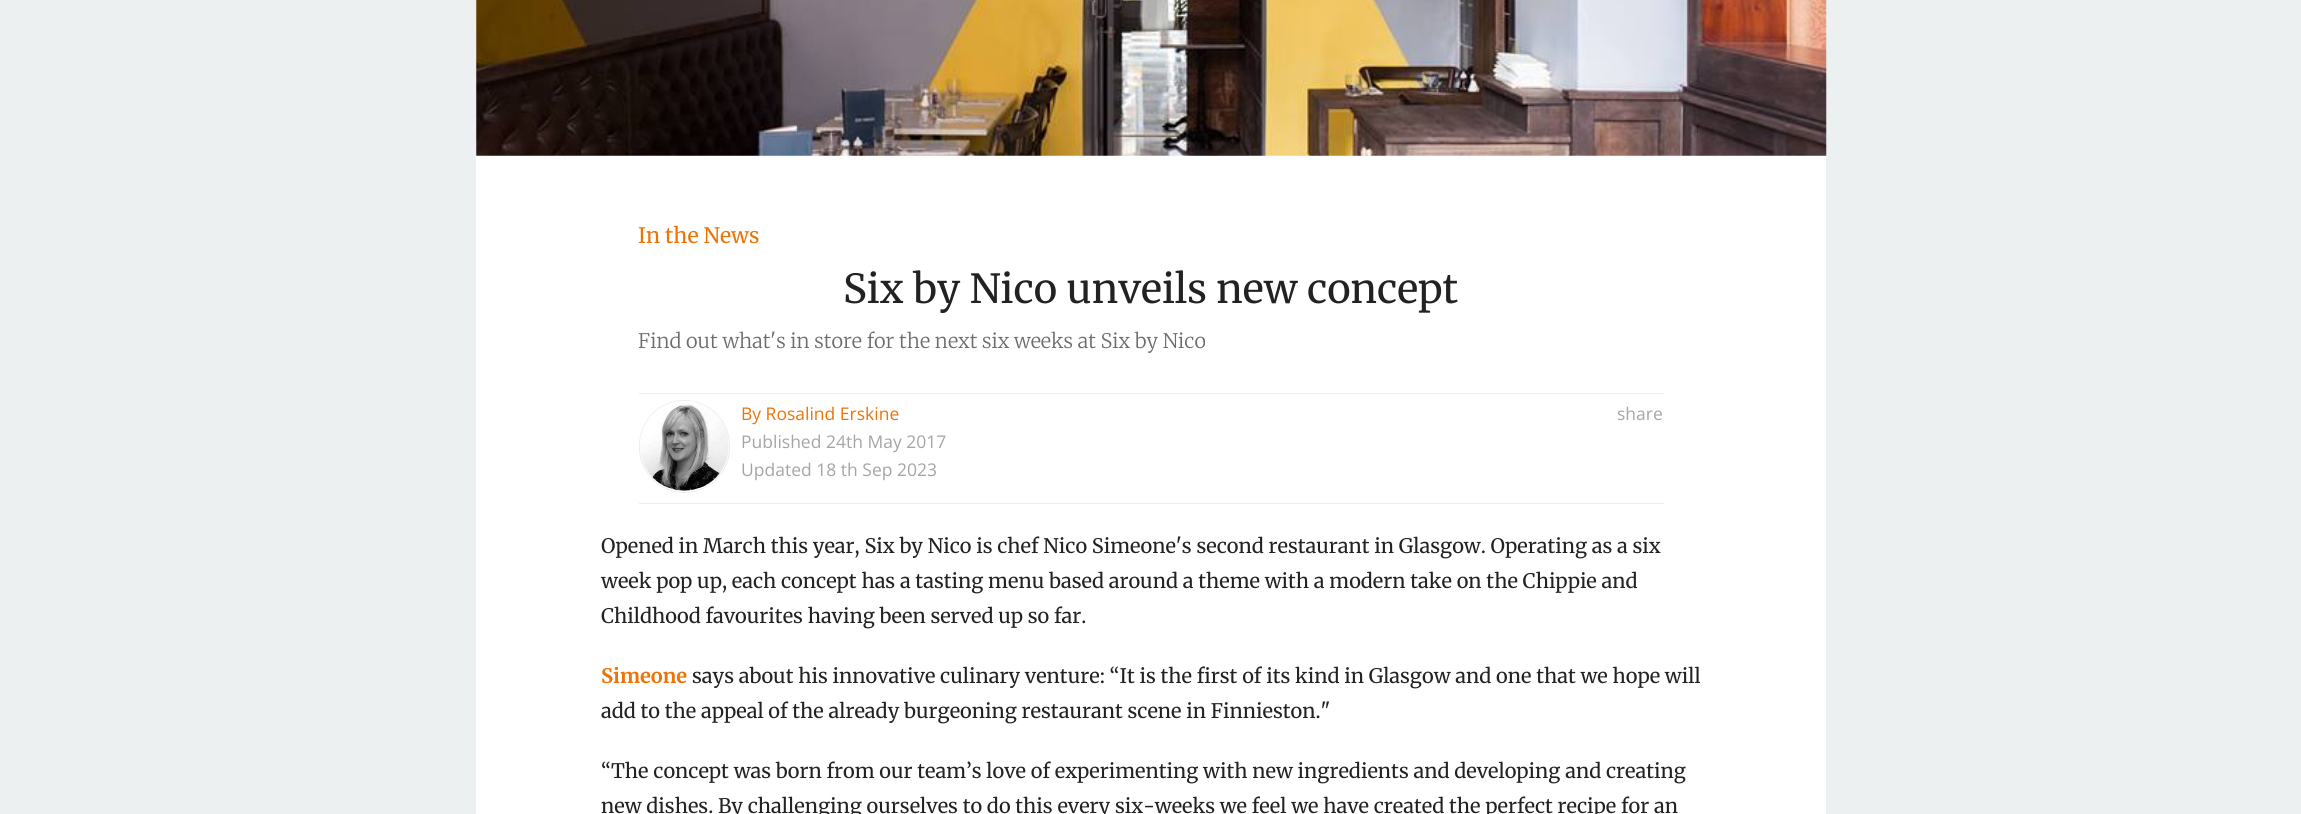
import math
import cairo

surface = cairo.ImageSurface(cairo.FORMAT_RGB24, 2301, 814)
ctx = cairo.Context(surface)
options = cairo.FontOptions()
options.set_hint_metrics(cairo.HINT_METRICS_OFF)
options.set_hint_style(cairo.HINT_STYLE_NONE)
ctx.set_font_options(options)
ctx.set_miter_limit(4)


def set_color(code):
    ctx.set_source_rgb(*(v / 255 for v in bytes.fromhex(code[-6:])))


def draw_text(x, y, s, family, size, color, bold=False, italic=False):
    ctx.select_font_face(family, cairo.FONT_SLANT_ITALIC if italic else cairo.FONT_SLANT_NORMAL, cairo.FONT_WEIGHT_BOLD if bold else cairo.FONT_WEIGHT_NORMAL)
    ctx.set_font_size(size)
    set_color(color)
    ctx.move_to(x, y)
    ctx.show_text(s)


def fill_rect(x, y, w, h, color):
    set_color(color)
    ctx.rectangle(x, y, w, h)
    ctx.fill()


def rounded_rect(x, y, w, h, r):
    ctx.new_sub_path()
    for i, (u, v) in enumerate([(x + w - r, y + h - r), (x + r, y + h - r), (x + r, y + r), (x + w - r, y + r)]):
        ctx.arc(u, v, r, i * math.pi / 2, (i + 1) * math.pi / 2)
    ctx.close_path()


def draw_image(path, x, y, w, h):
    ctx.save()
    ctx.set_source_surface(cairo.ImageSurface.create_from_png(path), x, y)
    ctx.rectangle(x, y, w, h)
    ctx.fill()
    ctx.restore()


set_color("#edf0f0")
ctx.paint()
fill_rect(476, 0, 1350, 814, "#ffffff")
draw_image("assets/img1.png", 476, 0, 1351, 156)
draw_text(638, 243, "In the News", "Merriweather Light", 21.25, "#ec7404")
draw_text(843, 303, "Six by Nico unveils new concept", "Merriweather Light", 40, "#222222")
draw_text(638, 348, "Find out what's in store for the next six weeks at Six by Nico", "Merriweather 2 Light", 20, "#6c6c6c")
fill_rect(639, 393, 1025, 1, "#ececec")
fill_rect(639, 503, 1025, 1, "#ececec")
rounded_rect(639.5, 400.5, 90, 92, 45)
ctx.set_line_width(1)
ctx.stroke()
draw_image("assets/img2.png", 640, 401, 89, 90)
draw_text(741, 420, "By Rosalind Erskine", "Open Sans", 17.5, "#ec7404")
draw_text(741, 448, "Published 24th May 2017", "Open Sans", 17.5, "#a5a5a5")
draw_text(741, 476, "Updated 18 th Sep 2023", "Open Sans", 17.5, "#a5a5a5")
draw_text(1617, 420, "share", "Open Sans", 17.5, "#a5a5a5")
draw_text(601, 553, "Opened in March this year, Six by Nico is chef Nico Simeone's second restaurant in Glasgow. Operating as a six", "Merriweather Light", 20, "#222222")
draw_text(601, 588, "week pop up, each concept has a tasting menu based around a theme with a modern take on the Chippie and", "Merriweather Light", 20, "#222222")
draw_text(601, 623, "Childhood favourites having been served up so far.", "Merriweather Light", 20, "#222222")
draw_text(601, 683, "Simeone", "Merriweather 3 Light", 20, "#ec7404")
draw_text(692, 683, "says about his innovative culinary venture: “It is the first of its kind in Glasgow and one that we hope will", "Merriweather Light", 20, "#222222")
draw_text(601, 718, "add to the appeal of the already burgeoning restaurant scene in Finnieston.\"", "Merriweather Light", 20, "#222222")
draw_text(601, 778, "“The concept was born from our team’s love of experimenting with new ingredients and developing and creating", "Merriweather Light", 20, "#222222")
draw_text(601, 813, "new dishes. By challenging ourselves to do this every six-weeks we feel we have created the perfect recipe for an", "Merriweather Light", 20, "#222222")
surface.write_to_png("output.png")
